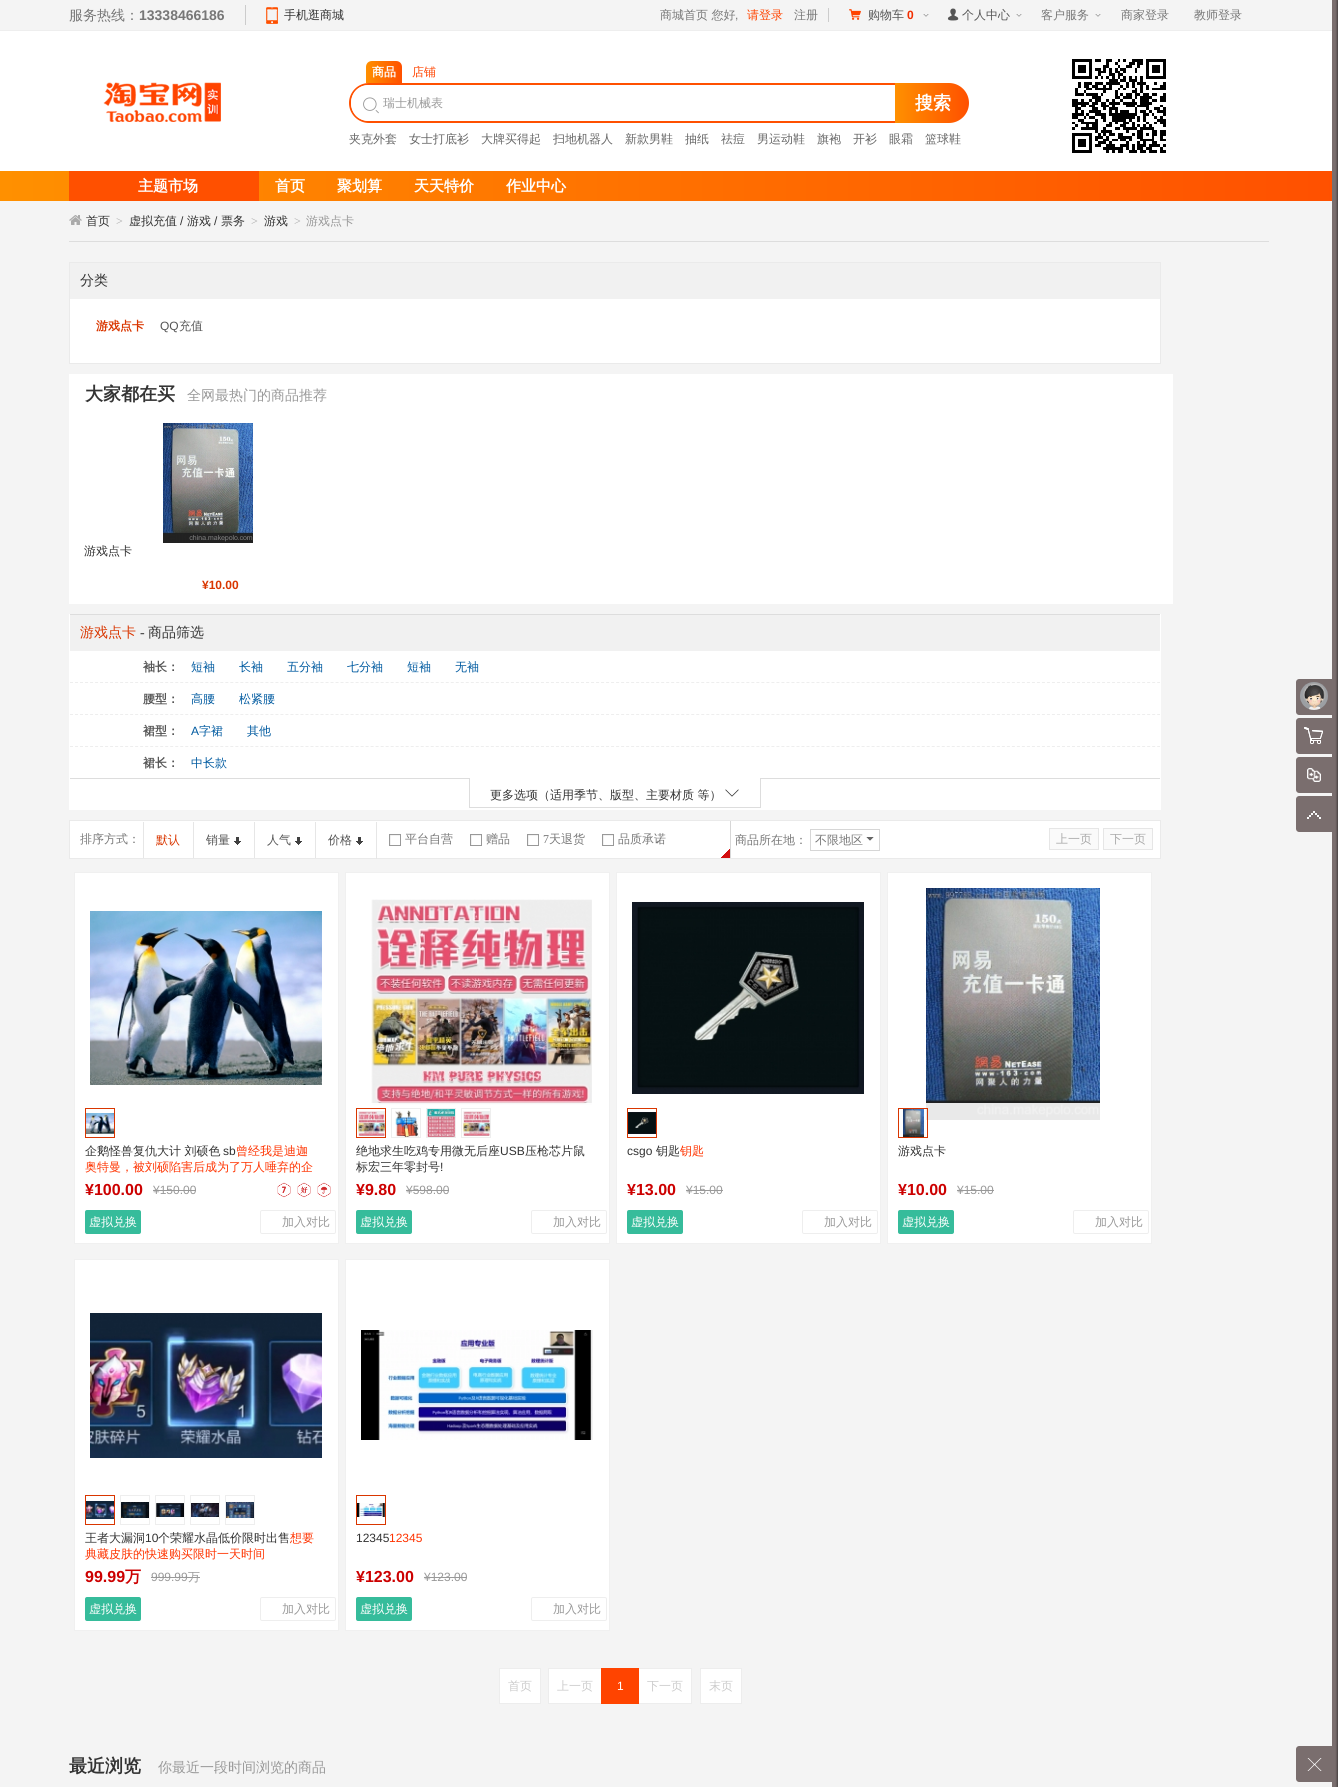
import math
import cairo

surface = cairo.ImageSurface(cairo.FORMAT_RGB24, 1338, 1787)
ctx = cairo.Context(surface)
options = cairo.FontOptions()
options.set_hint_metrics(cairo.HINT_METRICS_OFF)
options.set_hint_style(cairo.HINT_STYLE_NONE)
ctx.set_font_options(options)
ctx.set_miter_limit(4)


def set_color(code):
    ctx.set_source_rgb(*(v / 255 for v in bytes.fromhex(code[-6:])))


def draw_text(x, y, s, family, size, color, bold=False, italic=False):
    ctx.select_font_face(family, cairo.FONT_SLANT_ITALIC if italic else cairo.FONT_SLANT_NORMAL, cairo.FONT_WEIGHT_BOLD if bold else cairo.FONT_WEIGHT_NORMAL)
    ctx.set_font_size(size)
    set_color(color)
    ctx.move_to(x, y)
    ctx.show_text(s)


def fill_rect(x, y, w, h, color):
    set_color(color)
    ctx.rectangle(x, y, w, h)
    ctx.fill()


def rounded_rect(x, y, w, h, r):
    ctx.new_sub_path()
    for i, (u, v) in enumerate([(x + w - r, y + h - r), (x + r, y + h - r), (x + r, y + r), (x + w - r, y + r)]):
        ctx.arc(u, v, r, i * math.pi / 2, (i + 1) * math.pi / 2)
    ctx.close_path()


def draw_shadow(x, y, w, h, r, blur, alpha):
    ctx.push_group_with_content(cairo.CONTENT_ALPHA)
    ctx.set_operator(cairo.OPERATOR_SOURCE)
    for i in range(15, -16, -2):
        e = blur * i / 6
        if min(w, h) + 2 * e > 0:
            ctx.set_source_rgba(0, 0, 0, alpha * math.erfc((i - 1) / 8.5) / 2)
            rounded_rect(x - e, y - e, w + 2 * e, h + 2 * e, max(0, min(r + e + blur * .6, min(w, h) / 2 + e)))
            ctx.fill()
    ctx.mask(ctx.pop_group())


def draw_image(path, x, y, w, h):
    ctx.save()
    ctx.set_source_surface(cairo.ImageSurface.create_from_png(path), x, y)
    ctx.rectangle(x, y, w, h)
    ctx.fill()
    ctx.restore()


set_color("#f4f4f4")
ctx.paint()
fill_rect(0, 30, 1338, 1, "#eeeeee")
fill_rect(245, 5, 1, 20, "#cccccc")
draw_text(69, 20, "服务热线：", "WenQuanYi Zen Hei Medium", 14, "#777777")
draw_text(139, 20, "13338466186", "Liberation Sans", 14, "#777777", bold=True)
draw_image("assets/img1.png", 266, 7, 12, 17)
draw_text(284, 19, "手机逛商城", "WenQuanYi Zen Hei Medium", 12, "#333333")
draw_text(660, 19, "商城首页 您好", "WenQuanYi Zen Hei Medium", 12, "#777777")
draw_text(735, 19, ",", "Liberation Sans", 12, "#777777")
draw_text(747, 19, "请登录", "WenQuanYi Zen Hei Medium", 12, "#ff4400")
draw_text(794, 19, "注册", "WenQuanYi Zen Hei Medium", 12, "#777777")
fill_rect(828, 8, 1, 14, "#cccccc")
draw_image("assets/img2.png", 849, 9, 12, 11)
draw_text(868, 19, "购物车", "WenQuanYi Zen Hei Medium", 12, "#555555")
draw_text(907, 19, "0", "Liberation Sans", 12, "#f22e00", bold=True)
draw_image("assets/img3.png", 923, 14, 6, 3)
draw_image("assets/img4.png", 947, 8, 12, 13)
draw_text(962, 19, "个人中心", "WenQuanYi Zen Hei Medium", 12, "#555555")
draw_image("assets/img3.png", 1016, 14, 6, 3)
draw_text(1041, 19, "客户服务", "WenQuanYi Zen Hei Medium", 12, "#777777")
draw_image("assets/img3.png", 1095, 14, 6, 3)
draw_text(1121, 19, "商家登录", "WenQuanYi Zen Hei Medium", 12, "#777777")
draw_text(1194, 19, "教师登录", "WenQuanYi Zen Hei Medium", 12, "#777777")
fill_rect(1332, 0, 6, 1787, "#7a6e6e")
set_color("#000000")
draw_shadow(1337, 0, 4, 1787, 0, 1, 0.25)
set_color("#7a6e6e")
ctx.new_path()
ctx.move_to(1299, 679)
ctx.line_to(1332, 679)
ctx.line_to(1332, 715)
ctx.line_to(1299, 715)
ctx.curve_to(1297.5, 715, 1296, 713.5, 1296, 712)
ctx.line_to(1296, 682)
ctx.curve_to(1296, 680.5, 1297.5, 679, 1299, 679)
ctx.close_path()
ctx.fill()
draw_image("assets/img5.png", 1300, 682, 28, 28)
set_color("#000000")
draw_shadow(1337, 0, 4, 1787, 0, 1, 0.25)
set_color("#7a6e6e")
ctx.new_path()
ctx.move_to(1299, 718)
ctx.line_to(1332, 718)
ctx.line_to(1332, 754)
ctx.line_to(1299, 754)
ctx.curve_to(1297.5, 754, 1296, 752.5, 1296, 751)
ctx.line_to(1296, 721)
ctx.curve_to(1296, 719.5, 1297.5, 718, 1299, 718)
ctx.close_path()
ctx.fill()
draw_image("assets/img6.png", 1304, 727, 19, 17)
ctx.new_path()
ctx.move_to(1299, 757)
ctx.line_to(1332, 757)
ctx.line_to(1332, 793)
ctx.line_to(1299, 793)
ctx.curve_to(1297.5, 793, 1296, 791.5, 1296, 790)
ctx.line_to(1296, 760)
ctx.curve_to(1296, 758.5, 1297.5, 757, 1299, 757)
ctx.close_path()
ctx.fill()
draw_image("assets/img7.png", 1307, 768, 14, 14)
ctx.new_path()
ctx.move_to(1299, 796)
ctx.line_to(1332, 796)
ctx.line_to(1332, 832)
ctx.line_to(1299, 832)
ctx.curve_to(1297.5, 832, 1296, 830.5, 1296, 829)
ctx.line_to(1296, 799)
ctx.curve_to(1296, 797.5, 1297.5, 796, 1299, 796)
ctx.close_path()
ctx.fill()
draw_image("assets/img8.png", 1307, 811, 14, 8)
ctx.new_path()
ctx.move_to(1299, 1746)
ctx.line_to(1332, 1746)
ctx.line_to(1332, 1782)
ctx.line_to(1299, 1782)
ctx.curve_to(1297.5, 1782, 1296, 1780.5, 1296, 1779)
ctx.line_to(1296, 1749)
ctx.curve_to(1296, 1747.5, 1297.5, 1746, 1299, 1746)
ctx.close_path()
ctx.fill()
draw_image("assets/img9.png", 1307, 1758, 15, 13)
fill_rect(0, 31, 1332, 140, "#ffffff")
draw_image("assets/img10.png", 103, 82, 118, 40)
gradient = cairo.LinearGradient(366, 72, 402, 72)
gradient.add_color_stop_rgba(0, 1, 0.565, 0, 1)
gradient.add_color_stop_rgba(1, 1, 0.314, 0, 1)
ctx.set_source(gradient)
ctx.new_path()
ctx.move_to(372, 61)
ctx.line_to(396, 61)
ctx.curve_to(399.5, 61, 402, 63.5, 402, 67)
ctx.line_to(402, 83)
ctx.line_to(366, 83)
ctx.line_to(366, 67)
ctx.curve_to(366, 63.5, 368.5, 61, 372, 61)
ctx.close_path()
ctx.fill()
draw_text(372, 76, "商品", "WenQuanYi Zen Hei", 12, "#ffffff", bold=True)
draw_text(412, 76, "店铺", "WenQuanYi Zen Hei Medium", 12, "#ff4400")
set_color("#ff5000")
ctx.set_fill_rule(cairo.FILL_RULE_EVEN_ODD)
ctx.new_path()
ctx.move_to(369, 83)
ctx.line_to(899, 83)
ctx.line_to(899, 123)
ctx.line_to(369, 123)
ctx.curve_to(358, 123, 349, 114, 349, 103)
ctx.curve_to(349, 92, 358, 83, 369, 83)
ctx.close_path()
ctx.move_to(369, 85)
ctx.line_to(899, 85)
ctx.line_to(899, 121)
ctx.line_to(369, 121)
ctx.curve_to(345, 121, 345, 85, 369, 85)
ctx.close_path()
ctx.fill()
set_color("#ffffff")
ctx.new_path()
ctx.move_to(369, 85)
ctx.line_to(899, 85)
ctx.line_to(899, 121)
ctx.line_to(369, 121)
ctx.curve_to(359, 121, 351, 113, 351, 103)
ctx.curve_to(351, 93, 359, 85, 369, 85)
ctx.close_path()
ctx.fill()
gradient = cairo.LinearGradient(895, 103, 969, 103)
gradient.add_color_stop_rgba(0, 1, 0.565, 0, 1)
gradient.add_color_stop_rgba(1, 1, 0.314, 0, 1)
ctx.set_source(gradient)
ctx.new_path()
ctx.move_to(895, 83)
ctx.line_to(949, 83)
ctx.curve_to(960, 83, 969, 92, 969, 103)
ctx.curve_to(969, 114, 960, 123, 949, 123)
ctx.line_to(895, 123)
ctx.close_path()
ctx.fill()
draw_text(915, 109, "搜索", "WenQuanYi Zen Hei", 18, "#ffffff", bold=True)
draw_image("assets/img11.png", 363, 97, 16, 17)
draw_text(383, 107, "瑞士机械表", "WenQuanYi Zen Hei Medium", 12, "#999999")
draw_text(349, 143, "夹克外套", "WenQuanYi Zen Hei Medium", 12, "#666666")
draw_text(409, 143, "女士打底衫", "WenQuanYi Zen Hei Medium", 12, "#666666")
draw_text(481, 143, "大牌买得起", "WenQuanYi Zen Hei Medium", 12, "#666666")
draw_text(553, 143, "扫地机器人", "WenQuanYi Zen Hei Medium", 12, "#666666")
draw_text(625, 143, "新款男鞋", "WenQuanYi Zen Hei Medium", 12, "#666666")
draw_text(685, 143, "抽纸", "WenQuanYi Zen Hei Medium", 12, "#666666")
draw_text(721, 143, "祛痘", "WenQuanYi Zen Hei Medium", 12, "#666666")
draw_text(757, 143, "男运动鞋", "WenQuanYi Zen Hei Medium", 12, "#666666")
draw_text(817, 143, "旗袍", "WenQuanYi Zen Hei Medium", 12, "#666666")
draw_text(853, 143, "开衫", "WenQuanYi Zen Hei Medium", 12, "#666666")
draw_text(889, 143, "眼霜", "WenQuanYi Zen Hei Medium", 12, "#666666")
draw_text(925, 143, "篮球鞋", "WenQuanYi Zen Hei Medium", 12, "#666666")
draw_image("assets/img12.png", 1072, 59, 94, 94)
gradient = cairo.LinearGradient(0, 186, 1338, 186)
gradient.add_color_stop_rgba(0, 1, 0.565, 0, 1)
gradient.add_color_stop_rgba(1, 1, 0.314, 0, 1)
ctx.set_source(gradient)
ctx.rectangle(0, 171, 1332, 30)
ctx.fill()
fill_rect(69, 171, 190, 30, "#ff5000")
draw_text(138, 191, "主题市场", "WenQuanYi Zen Hei", 15, "#ffffff", bold=True)
draw_text(275, 191, "首页", "WenQuanYi Zen Hei", 15, "#ffffff", bold=True)
draw_text(337, 191, "聚划算", "WenQuanYi Zen Hei", 15, "#ffffff", bold=True)
draw_text(414, 191, "天天特价", "WenQuanYi Zen Hei", 15, "#ffffff", bold=True)
draw_text(506, 191, "作业中心", "WenQuanYi Zen Hei", 15, "#ffffff", bold=True)
fill_rect(69, 241, 1200, 1, "#dddddd")
draw_image("assets/img13.png", 69, 215, 13, 10)
draw_text(86, 225, "首页", "WenQuanYi Zen Hei Medium", 12, "#333333")
draw_text(116, 225, ">", "Liberation Serif", 12, "#aaaaaa")
draw_text(129, 225, "虚拟充值", "WenQuanYi Zen Hei Medium", 12, "#333333")
draw_text(180, 225, "/", "Liberation Sans", 12, "#333333")
draw_text(187, 225, "游戏", "WenQuanYi Zen Hei Medium", 12, "#333333")
draw_text(214, 225, "/", "Liberation Sans", 12, "#333333")
draw_text(221, 225, "票务", "WenQuanYi Zen Hei Medium", 12, "#333333")
draw_text(251, 225, ">", "Liberation Serif", 12, "#aaaaaa")
draw_text(264, 225, "游戏", "WenQuanYi Zen Hei Medium", 12, "#333333")
draw_text(294, 225, ">", "Liberation Serif", 12, "#aaaaaa")
draw_text(306, 225, "游戏点卡", "WenQuanYi Zen Hei Medium", 12, "#999999")
fill_rect(70, 299, 1090, 64, "#ffffff")
ctx.rectangle(69.5, 262.5, 1091, 101)
set_color("#eaeaea")
ctx.set_line_width(1)
ctx.stroke()
fill_rect(70, 263, 1090, 36, "#f1f1f1")
draw_text(80, 285, "分类", "WenQuanYi Zen Hei Medium", 14, "#333333")
draw_text(96, 330, "游戏点卡", "WenQuanYi Zen Hei", 12, "#d93600", bold=True)
draw_text(160, 330, "QQ", "Liberation Sans", 12, "#555555")
draw_text(179, 330, "充值", "WenQuanYi Zen Hei Medium", 12, "#555555")
fill_rect(69, 374, 1104, 230, "#ffffff")
draw_text(85, 400, "大家都在买", "WenQuanYi Zen Hei", 18, "#333333", bold=True)
draw_text(187, 400, "全网最热门的商品推荐", "WenQuanYi Zen Hei Medium", 14, "#999999")
draw_image("assets/img14.png", 163, 423, 90, 120)
draw_text(84, 555, "游戏点卡", "WenQuanYi Zen Hei Medium", 12, "#333333")
draw_text(202, 589, "¥10.00", "Liberation Sans", 12, "#d93600", bold=True)
fill_rect(70, 651, 1090, 159, "#ffffff")
fill_rect(69, 614, 1092, 1, "#dddddd")
fill_rect(1160, 614, 1, 196, "#ffffff")
fill_rect(69, 614, 1, 196, "#ffffff")
fill_rect(70, 615, 1090, 36, "#f1f1f1")
draw_text(80, 637, "游戏点卡", "WenQuanYi Zen Hei Medium", 14, "#d93600")
draw_text(140, 637, "-", "Liberation Serif", 14, "#333333")
draw_text(148, 637, "商品筛选", "WenQuanYi Zen Hei Medium", 14, "#333333")
draw_text(143, 671, "袖长：", "WenQuanYi Zen Hei", 12, "#555555", bold=True)
draw_text(191, 671, "短袖", "WenQuanYi Zen Hei Medium", 12, "#005aa0")
draw_text(239, 671, "长袖", "WenQuanYi Zen Hei Medium", 12, "#005aa0")
draw_text(287, 671, "五分袖", "WenQuanYi Zen Hei Medium", 12, "#005aa0")
draw_text(347, 671, "七分袖", "WenQuanYi Zen Hei Medium", 12, "#005aa0")
draw_text(407, 671, "短袖", "WenQuanYi Zen Hei Medium", 12, "#005aa0")
draw_text(455, 671, "无袖", "WenQuanYi Zen Hei Medium", 12, "#005aa0")
ctx.new_path()
ctx.move_to(70, 682.5)
ctx.line_to(1160, 682.5)
set_color("#eeeeee")
ctx.set_dash([3, 2.01])
ctx.stroke()
draw_text(143, 703, "腰型：", "WenQuanYi Zen Hei", 12, "#555555", bold=True)
draw_text(191, 703, "高腰", "WenQuanYi Zen Hei Medium", 12, "#005aa0")
draw_text(239, 703, "松紧腰", "WenQuanYi Zen Hei Medium", 12, "#005aa0")
ctx.new_path()
ctx.move_to(70, 714.5)
ctx.line_to(1160, 714.5)
set_color("#eeeeee")
ctx.stroke()
draw_text(143, 735, "裙型：", "WenQuanYi Zen Hei", 12, "#555555", bold=True)
draw_text(191, 735, "A", "Liberation Sans", 12, "#005aa0")
draw_text(199, 735, "字裙", "WenQuanYi Zen Hei Medium", 12, "#005aa0")
draw_text(247, 735, "其他", "WenQuanYi Zen Hei Medium", 12, "#005aa0")
ctx.new_path()
ctx.move_to(70, 746.5)
ctx.line_to(1160, 746.5)
set_color("#eeeeee")
ctx.stroke()
draw_text(143, 767, "裙长：", "WenQuanYi Zen Hei", 12, "#555555", bold=True)
draw_text(191, 767, "中长款", "WenQuanYi Zen Hei Medium", 12, "#005aa0")
fill_rect(70, 778, 1090, 1, "#dddddd")
fill_rect(470, 778, 290, 1, "#ffffff")
fill_rect(760, 778, 1, 30, "#dddddd")
fill_rect(469, 807, 292, 1, "#dddddd")
fill_rect(469, 778, 1, 30, "#dddddd")
draw_text(490, 799, "更多选项（适用季节、版型、主要材质 等）", "WenQuanYi Zen Hei Medium", 12, "#333333")
draw_image("assets/img15.png", 725, 789, 14, 8)
set_color("#ffffff")
ctx.rectangle(69.5, 820.5, 1091, 38)
ctx.fill_preserve()
set_color("#eaeaea")
ctx.set_dash([])
ctx.stroke()
draw_text(80, 843, "排序方式：", "WenQuanYi Zen Hei Medium", 12, "#777777")
fill_rect(376, 822, 1, 37, "#e6e6e6")
fill_rect(143, 822, 1, 36, "#e6e6e6")
draw_text(156, 844, "默认", "WenQuanYi Zen Hei Medium", 12, "#d93600")
fill_rect(193, 822, 1, 36, "#e6e6e6")
draw_text(206, 844, "销量", "WenQuanYi Zen Hei Medium", 12, "#555555")
draw_image("assets/img16.png", 234, 837, 7, 8)
fill_rect(254, 822, 1, 36, "#e6e6e6")
draw_text(267, 844, "人气", "WenQuanYi Zen Hei Medium", 12, "#555555")
draw_image("assets/img16.png", 295, 837, 7, 8)
fill_rect(315, 822, 1, 36, "#e6e6e6")
draw_text(328, 844, "价格", "WenQuanYi Zen Hei Medium", 12, "#555555")
draw_image("assets/img16.png", 356, 837, 7, 8)
fill_rect(730, 821, 1, 37, "#d7d7d7")
draw_image("assets/img17.png", 389, 834, 12, 12)
draw_text(405, 843, "平台自营", "WenQuanYi Zen Hei Medium", 12, "#777777")
draw_image("assets/img17.png", 470, 834, 12, 12)
draw_text(486, 843, "赠品", "WenQuanYi Zen Hei Medium", 12, "#777777")
draw_image("assets/img17.png", 527, 834, 12, 12)
draw_text(543, 843, "7", "Liberation Serif", 12, "#777777")
draw_text(549, 843, "天退货", "WenQuanYi Zen Hei Medium", 12, "#777777")
draw_image("assets/img17.png", 602, 834, 12, 12)
draw_text(618, 843, "品质承诺", "WenQuanYi Zen Hei Medium", 12, "#777777")
draw_image("assets/img18.png", 721, 849, 9, 9)
draw_text(735, 844, "商品所在地：", "WenQuanYi Zen Hei Medium", 12, "#777777")
ctx.rectangle(810.5, 829.5, 69, 21)
set_color("#d6d6d6")
ctx.stroke()
draw_text(815, 844, "不限地区", "WenQuanYi Zen Hei Medium", 12, "#777777")
set_color("#666666")
ctx.set_fill_rule(cairo.FILL_RULE_WINDING)
ctx.new_path()
ctx.move_to(866, 837)
ctx.line_to(874, 837)
ctx.line_to(870, 841)
ctx.close_path()
ctx.fill()
set_color("#ffffff")
ctx.new_path()
ctx.move_to(874, 837)
ctx.line_to(874, 845)
ctx.line_to(870, 841)
ctx.close_path()
ctx.move_to(866, 845)
ctx.line_to(866, 837)
ctx.line_to(870, 841)
ctx.close_path()
ctx.fill()
set_color("#fafafa")
ctx.rectangle(1049.5, 828.5, 49, 21)
ctx.fill_preserve()
set_color("#e6e6e6")
ctx.stroke()
draw_text(1056, 843, "上一页", "WenQuanYi Zen Hei Medium", 12, "#aaaaaa")
set_color("#fafafa")
ctx.rectangle(1103.5, 828.5, 49, 21)
ctx.fill_preserve()
set_color("#e6e6e6")
ctx.stroke()
draw_text(1110, 843, "下一页", "WenQuanYi Zen Hei Medium", 12, "#aaaaaa")
set_color("#ffffff")
ctx.rectangle(74.5, 872.5, 264, 371)
ctx.fill_preserve()
set_color("#f0f0f0")
ctx.stroke()
draw_image("assets/img19.png", 90, 911, 232, 174)
ctx.rectangle(85.5, 1108.5, 29, 29)
set_color("#d93600")
ctx.stroke()
draw_image("assets/img20.png", 86, 1113, 28, 21)
draw_text(85, 1155, "企鹅怪兽复仇大计 刘硕色", "WenQuanYi Zen Hei Medium", 12, "#333333")
draw_text(223, 1155, "sb", "Liberation Sans", 12, "#333333")
draw_text(236, 1155, "曾经我是迪迦", "WenQuanYi Zen Hei Medium", 12, "#ff3300")
draw_text(85, 1171, "奥特曼，被刘硕陷害后成为了万人唾弃的企", "WenQuanYi Zen Hei Medium", 12, "#ff3300")
draw_text(85, 1195, "¥100.00", "Liberation Sans", 16, "#cc0000", bold=True)
draw_text(153, 1194, "¥150.00", "Liberation Sans", 12, "#999999")
fill_rect(153, 1190, 43, 1, "#999999")
draw_image("assets/img21.png", 277, 1182, 14, 16)
draw_image("assets/img22.png", 297, 1182, 14, 16)
draw_image("assets/img23.png", 317, 1182, 14, 16)
set_color("#36bc9b")
rounded_rect(85, 1210, 56, 24, 2)
ctx.fill()
draw_text(89, 1226, "虚拟兑换", "WenQuanYi Zen Hei Medium", 12, "#ffffff")
rounded_rect(260.5, 1210.5, 75, 23, 1.5)
set_color("#eeeeee")
ctx.stroke()
draw_text(282, 1226, "加入对比", "WenQuanYi Zen Hei Medium", 12, "#999999")
set_color("#ffffff")
ctx.rectangle(345.5, 872.5, 264, 371)
ctx.fill_preserve()
set_color("#f0f0f0")
ctx.stroke()
draw_image("assets/img24.png", 371, 899, 221, 206)
ctx.set_source_rgba(1, 1, 1, 0.9)
ctx.rectangle(371, 1103, 221, 2)
ctx.fill()
ctx.rectangle(356.5, 1108.5, 29, 29)
set_color("#d93600")
ctx.stroke()
draw_image("assets/img25.png", 357, 1111, 28, 25)
ctx.rectangle(391.5, 1108.5, 29, 29)
set_color("#eeeeee")
ctx.stroke()
draw_image("assets/img26.png", 395, 1110, 24, 27)
ctx.rectangle(426.5, 1108.5, 29, 29)
ctx.stroke()
draw_image("assets/img27.png", 427, 1109, 28, 28)
ctx.rectangle(461.5, 1108.5, 29, 29)
ctx.stroke()
draw_image("assets/img28.png", 462, 1111, 28, 25)
draw_text(356, 1155, "绝地求生吃鸡专用微无后座", "WenQuanYi Zen Hei Medium", 12, "#333333")
draw_text(500, 1155, "USB", "Liberation Sans", 12, "#333333")
draw_text(525, 1155, "压枪芯片鼠", "WenQuanYi Zen Hei Medium", 12, "#333333")
draw_text(356, 1171, "标宏三年零封号", "WenQuanYi Zen Hei Medium", 12, "#333333")
draw_text(440, 1171, "!", "Liberation Sans", 12, "#333333")
draw_text(356, 1195, "¥9.80", "Liberation Sans", 16, "#cc0000", bold=True)
draw_text(406, 1194, "¥598.00", "Liberation Sans", 12, "#999999")
fill_rect(406, 1190, 43, 1, "#999999")
set_color("#36bc9b")
rounded_rect(356, 1210, 56, 24, 2)
ctx.fill()
draw_text(360, 1226, "虚拟兑换", "WenQuanYi Zen Hei Medium", 12, "#ffffff")
rounded_rect(531.5, 1210.5, 75, 23, 1.5)
set_color("#eeeeee")
ctx.stroke()
draw_text(553, 1226, "加入对比", "WenQuanYi Zen Hei Medium", 12, "#999999")
set_color("#ffffff")
ctx.rectangle(616.5, 872.5, 264, 371)
ctx.fill_preserve()
set_color("#f0f0f0")
ctx.stroke()
draw_image("assets/img29.png", 632, 902, 232, 192)
ctx.rectangle(627.5, 1108.5, 29, 29)
set_color("#d93600")
ctx.stroke()
draw_image("assets/img30.png", 628, 1112, 28, 22)
draw_text(627, 1155, "csgo", "Liberation Sans", 12, "#333333")
draw_text(656, 1155, "钥匙", "WenQuanYi Zen Hei Medium", 12, "#333333")
draw_text(680, 1155, "钥匙", "WenQuanYi Zen Hei Medium", 12, "#ff3300")
draw_text(627, 1195, "¥13.00", "Liberation Sans", 16, "#cc0000", bold=True)
draw_text(686, 1194, "¥15.00", "Liberation Sans", 12, "#999999")
fill_rect(686, 1190, 37, 1, "#999999")
set_color("#36bc9b")
rounded_rect(627, 1210, 56, 24, 2)
ctx.fill()
draw_text(631, 1226, "虚拟兑换", "WenQuanYi Zen Hei Medium", 12, "#ffffff")
rounded_rect(802.5, 1210.5, 75, 23, 1.5)
set_color("#eeeeee")
ctx.stroke()
draw_text(824, 1226, "加入对比", "WenQuanYi Zen Hei Medium", 12, "#999999")
set_color("#ffffff")
ctx.rectangle(887.5, 872.5, 264, 371)
ctx.fill_preserve()
set_color("#f0f0f0")
ctx.stroke()
draw_image("assets/img31.png", 926, 888, 174, 232)
ctx.set_source_rgba(1, 1, 1, 0.9)
ctx.rectangle(926, 1103, 174, 17)
ctx.fill()
ctx.rectangle(898.5, 1108.5, 29, 29)
set_color("#d93600")
ctx.stroke()
draw_image("assets/img32.png", 903, 1109, 21, 28)
draw_text(898, 1155, "游戏点卡", "WenQuanYi Zen Hei Medium", 12, "#333333")
draw_text(898, 1195, "¥10.00", "Liberation Sans", 16, "#cc0000", bold=True)
draw_text(957, 1194, "¥15.00", "Liberation Sans", 12, "#999999")
fill_rect(957, 1190, 37, 1, "#999999")
set_color("#36bc9b")
rounded_rect(898, 1210, 56, 24, 2)
ctx.fill()
draw_text(902, 1226, "虚拟兑换", "WenQuanYi Zen Hei Medium", 12, "#ffffff")
rounded_rect(1073.5, 1210.5, 75, 23, 1.5)
set_color("#eeeeee")
ctx.stroke()
draw_text(1095, 1226, "加入对比", "WenQuanYi Zen Hei Medium", 12, "#999999")
set_color("#ffffff")
ctx.rectangle(74.5, 1259.5, 264, 371)
ctx.fill_preserve()
set_color("#f0f0f0")
ctx.stroke()
draw_image("assets/img33.png", 90, 1313, 232, 145)
ctx.rectangle(85.5, 1495.5, 29, 29)
set_color("#d93600")
ctx.stroke()
draw_image("assets/img34.png", 86, 1501, 28, 18)
ctx.rectangle(120.5, 1495.5, 29, 29)
set_color("#eeeeee")
ctx.stroke()
draw_image("assets/img35.png", 121, 1502, 28, 16)
ctx.rectangle(155.5, 1495.5, 29, 29)
ctx.stroke()
draw_image("assets/img36.png", 156, 1503, 28, 14)
ctx.rectangle(190.5, 1495.5, 29, 29)
ctx.stroke()
draw_image("assets/img37.png", 191, 1503, 28, 14)
ctx.rectangle(225.5, 1495.5, 29, 29)
ctx.stroke()
draw_image("assets/img38.png", 226, 1502, 28, 16)
draw_text(85, 1542, "王者大漏洞", "WenQuanYi Zen Hei Medium", 12, "#333333")
draw_text(145, 1542, "10", "Liberation Sans", 12, "#333333")
draw_text(158, 1542, "个荣耀水晶低价限时出售", "WenQuanYi Zen Hei Medium", 12, "#333333")
draw_text(290, 1542, "想要", "WenQuanYi Zen Hei Medium", 12, "#ff3300")
draw_text(85, 1558, "典藏皮肤的快速购买限时一天时间", "WenQuanYi Zen Hei Medium", 12, "#ff3300")
draw_text(85, 1582, "99.99", "Liberation Sans", 16, "#cc0000", bold=True)
draw_text(125, 1582, "万", "WenQuanYi Zen Hei", 16, "#cc0000", bold=True)
draw_text(151, 1581, "999.99", "Liberation Sans", 12, "#999999")
fill_rect(151, 1577, 49, 1, "#999999")
draw_text(188, 1581, "万", "WenQuanYi Zen Hei Medium", 12, "#999999")
set_color("#36bc9b")
rounded_rect(85, 1597, 56, 24, 2)
ctx.fill()
draw_text(89, 1613, "虚拟兑换", "WenQuanYi Zen Hei Medium", 12, "#ffffff")
rounded_rect(260.5, 1597.5, 75, 23, 1.5)
set_color("#eeeeee")
ctx.stroke()
draw_text(282, 1613, "加入对比", "WenQuanYi Zen Hei Medium", 12, "#999999")
set_color("#ffffff")
ctx.rectangle(345.5, 1259.5, 264, 371)
ctx.fill_preserve()
set_color("#f0f0f0")
ctx.stroke()
draw_image("assets/img39.png", 361, 1330, 232, 110)
ctx.rectangle(356.5, 1495.5, 29, 29)
set_color("#d93600")
ctx.stroke()
draw_image("assets/img40.png", 357, 1503, 28, 14)
draw_text(356, 1542, "12345", "Liberation Sans", 12, "#333333")
draw_text(389, 1542, "12345", "Liberation Sans", 12, "#ff3300")
draw_text(356, 1582, "¥123.00", "Liberation Sans", 16, "#cc0000", bold=True)
draw_text(424, 1581, "¥123.00", "Liberation Sans", 12, "#999999")
fill_rect(424, 1577, 43, 1, "#999999")
set_color("#36bc9b")
rounded_rect(356, 1597, 56, 24, 2)
ctx.fill()
draw_text(360, 1613, "虚拟兑换", "WenQuanYi Zen Hei Medium", 12, "#ffffff")
rounded_rect(531.5, 1597.5, 75, 23, 1.5)
set_color("#eeeeee")
ctx.stroke()
draw_text(553, 1613, "加入对比", "WenQuanYi Zen Hei Medium", 12, "#999999")
set_color("#ffffff")
ctx.rectangle(499.5, 1668.5, 41, 35)
ctx.fill_preserve()
set_color("#ededed")
ctx.stroke()
draw_text(508, 1690, "首页", "WenQuanYi Zen Hei Medium", 12, "#cccccc")
set_color("#ffffff")
ctx.rectangle(548.5, 1668.5, 53, 35)
ctx.fill_preserve()
set_color("#ededed")
ctx.stroke()
draw_text(557, 1690, "上一页", "WenQuanYi Zen Hei Medium", 12, "#cccccc")
set_color("#ffffff")
ctx.rectangle(638.5, 1668.5, 53, 35)
ctx.fill_preserve()
set_color("#ededed")
ctx.stroke()
fill_rect(601, 1668, 38, 36, "#ff4400")
draw_text(617, 1690, "1", "Liberation Sans", 12, "#ffffff")
draw_text(647, 1690, "下一页", "WenQuanYi Zen Hei Medium", 12, "#cccccc")
set_color("#ffffff")
ctx.rectangle(700.5, 1668.5, 41, 35)
ctx.fill_preserve()
set_color("#ededed")
ctx.stroke()
draw_text(709, 1690, "末页", "WenQuanYi Zen Hei Medium", 12, "#cccccc")
draw_text(69, 1772, "最近浏览", "WenQuanYi Zen Hei", 18, "#333333", bold=True)
draw_text(158, 1772, "你最近一段时间浏览的商品", "WenQuanYi Zen Hei Medium", 14, "#999999")
surface.write_to_png("output.png")
